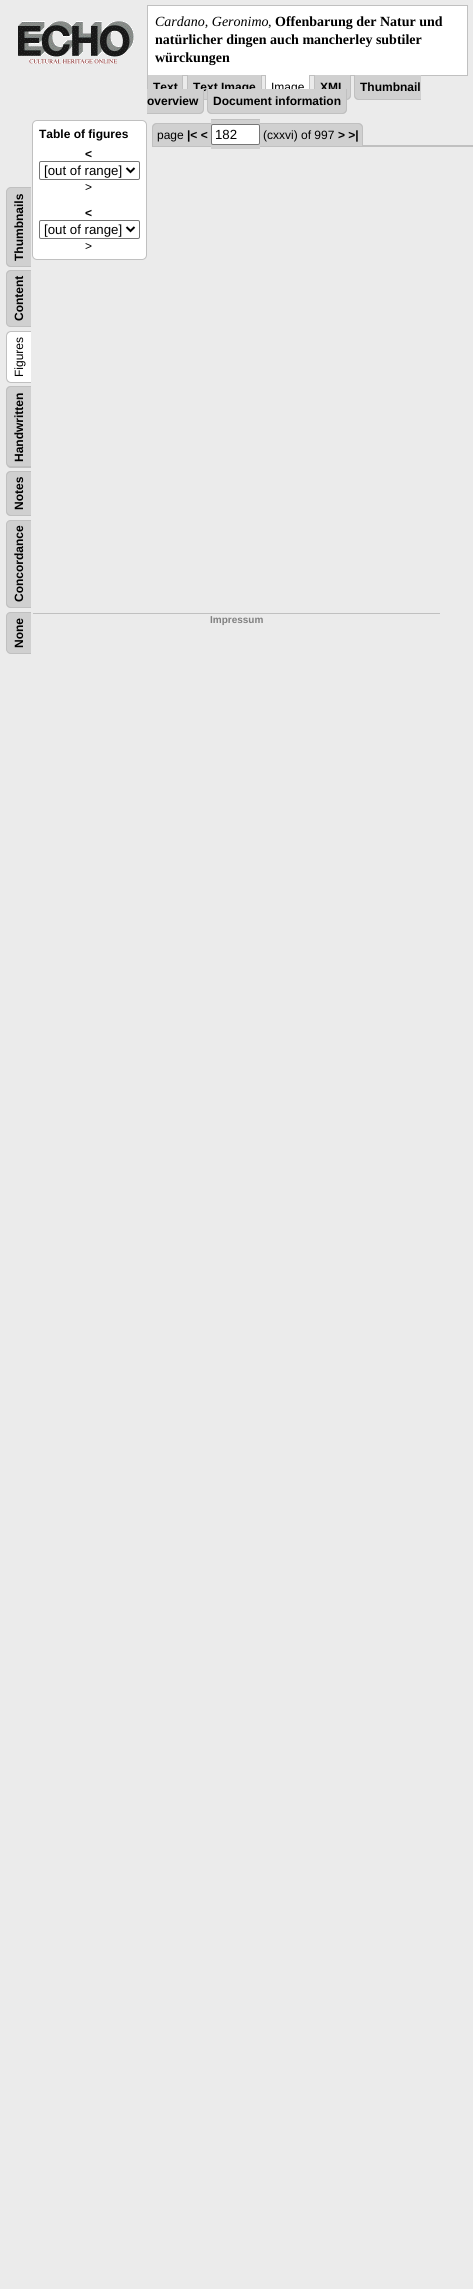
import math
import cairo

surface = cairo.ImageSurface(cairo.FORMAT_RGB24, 473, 2289)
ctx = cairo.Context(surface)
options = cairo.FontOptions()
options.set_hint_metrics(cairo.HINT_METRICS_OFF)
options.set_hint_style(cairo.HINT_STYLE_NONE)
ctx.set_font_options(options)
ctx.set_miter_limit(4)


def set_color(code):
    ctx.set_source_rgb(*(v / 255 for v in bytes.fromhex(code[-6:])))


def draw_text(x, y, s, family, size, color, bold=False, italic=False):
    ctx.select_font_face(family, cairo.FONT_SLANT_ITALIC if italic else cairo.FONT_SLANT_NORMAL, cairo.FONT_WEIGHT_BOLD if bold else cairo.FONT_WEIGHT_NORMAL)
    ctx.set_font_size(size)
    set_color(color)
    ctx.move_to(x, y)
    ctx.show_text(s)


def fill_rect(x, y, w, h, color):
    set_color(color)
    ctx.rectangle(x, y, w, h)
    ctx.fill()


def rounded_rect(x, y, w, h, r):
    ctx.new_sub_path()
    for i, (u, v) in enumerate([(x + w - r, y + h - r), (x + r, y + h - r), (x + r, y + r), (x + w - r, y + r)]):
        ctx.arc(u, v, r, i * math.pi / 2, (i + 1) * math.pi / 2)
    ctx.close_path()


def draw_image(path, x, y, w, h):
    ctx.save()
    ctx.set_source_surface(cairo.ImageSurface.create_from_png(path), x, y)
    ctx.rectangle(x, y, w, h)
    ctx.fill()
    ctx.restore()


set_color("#ebebeb")
ctx.paint()
draw_image("assets/img1.png", 18, 21, 116, 43)
set_color("#ffffff")
ctx.rectangle(147.5, 5.5, 320, 70)
ctx.fill_preserve()
set_color("#c0c0c0")
ctx.set_line_width(1)
ctx.stroke()
draw_text(155, 26, "Cardano, Geronimo", "Liberation Serif", 14, "#000000", italic=True)
draw_text(268, 26, ",", "Liberation Serif", 14, "#000000")
draw_text(275, 26, "Offenbarung der Natur und", "Liberation Serif", 14, "#000000", bold=True)
draw_text(155, 44, "natürlicher dingen auch mancherley subtiler", "Liberation Serif", 14, "#000000", bold=True)
draw_text(155, 62, "würckungen", "Liberation Serif", 14, "#000000", bold=True)
fill_rect(148, 75, 34, 14, "#d0d0d0")
set_color("#c0c0c0")
ctx.set_fill_rule(cairo.FILL_RULE_EVEN_ODD)
ctx.new_path()
ctx.move_to(147, 75)
ctx.line_to(183, 75)
ctx.line_to(183, 95)
ctx.curve_to(183, 98, 181, 100, 178, 100)
ctx.line_to(152, 100)
ctx.curve_to(149, 100, 147, 98, 147, 95)
ctx.close_path()
ctx.move_to(148, 75)
ctx.line_to(182, 75)
ctx.line_to(182, 95)
ctx.curve_to(182, 97, 180, 99, 178, 99)
ctx.line_to(152, 99)
ctx.curve_to(150, 99, 148, 97, 148, 95)
ctx.close_path()
ctx.fill()
draw_text(153, 91, "Text", "Liberation Sans", 12, "#000000", bold=True)
fill_rect(188, 75, 73, 24, "#d0d0d0")
set_color("#c0c0c0")
ctx.new_path()
ctx.move_to(187, 75)
ctx.line_to(262, 75)
ctx.line_to(262, 95)
ctx.curve_to(262, 98, 260, 100, 257, 100)
ctx.line_to(192, 100)
ctx.curve_to(189, 100, 187, 98, 187, 95)
ctx.close_path()
ctx.move_to(188, 75)
ctx.line_to(261, 75)
ctx.line_to(261, 95)
ctx.curve_to(261, 97, 259, 99, 257, 99)
ctx.line_to(192, 99)
ctx.curve_to(190, 99, 188, 97, 188, 95)
ctx.close_path()
ctx.fill()
draw_text(193, 91, "Text Image", "Liberation Sans", 12, "#000000", bold=True)
fill_rect(266, 75, 43, 14, "#ffffff")
set_color("#c0c0c0")
ctx.new_path()
ctx.move_to(265, 75)
ctx.line_to(310, 75)
ctx.line_to(310, 95)
ctx.curve_to(310, 98, 308, 100, 305, 100)
ctx.line_to(270, 100)
ctx.curve_to(267, 100, 265, 98, 265, 95)
ctx.close_path()
ctx.move_to(266, 75)
ctx.line_to(309, 75)
ctx.line_to(309, 95)
ctx.curve_to(309, 97, 307, 99, 305, 99)
ctx.line_to(270, 99)
ctx.curve_to(268, 99, 266, 97, 266, 95)
ctx.close_path()
ctx.fill()
draw_text(271, 91, "Image", "Liberation Sans", 12, "#000000")
set_color("#d0d0d0")
ctx.new_path()
ctx.move_to(314, 75)
ctx.line_to(351, 75)
ctx.line_to(351, 95)
ctx.curve_to(351, 98, 349, 100, 346, 100)
ctx.line_to(319, 100)
ctx.curve_to(316, 100, 314, 98, 314, 95)
ctx.close_path()
ctx.fill()
set_color("#c0c0c0")
ctx.new_path()
ctx.move_to(314, 75)
ctx.line_to(351, 75)
ctx.line_to(351, 95)
ctx.curve_to(351, 98, 349, 100, 346, 100)
ctx.line_to(319, 100)
ctx.curve_to(316, 100, 314, 98, 314, 95)
ctx.close_path()
ctx.move_to(315, 75)
ctx.line_to(350, 75)
ctx.line_to(350, 95)
ctx.curve_to(350, 97, 348, 99, 346, 99)
ctx.line_to(319, 99)
ctx.curve_to(317, 99, 315, 97, 315, 95)
ctx.close_path()
ctx.fill()
draw_text(320, 91, "XML", "Liberation Sans", 12, "#000000", bold=True)
set_color("#d0d0d0")
ctx.new_path()
ctx.move_to(354, 75)
ctx.line_to(421, 75)
ctx.line_to(421, 100)
ctx.line_to(359, 100)
ctx.curve_to(356, 100, 354, 98, 354, 95)
ctx.close_path()
ctx.fill()
set_color("#c0c0c0")
ctx.new_path()
ctx.move_to(354, 75)
ctx.line_to(421, 75)
ctx.line_to(421, 100)
ctx.line_to(359, 100)
ctx.curve_to(356, 100, 354, 98, 354, 95)
ctx.close_path()
ctx.move_to(355, 75)
ctx.line_to(421, 75)
ctx.line_to(421, 99)
ctx.line_to(359, 99)
ctx.curve_to(357, 99, 355, 97, 355, 95)
ctx.close_path()
ctx.fill()
draw_text(360, 91, "Thumbnail", "Liberation Sans", 12, "#000000", bold=True)
set_color("#d0d0d0")
ctx.new_path()
ctx.move_to(147, 89)
ctx.line_to(204, 89)
ctx.line_to(204, 109)
ctx.curve_to(204, 112, 202, 114, 199, 114)
ctx.line_to(147, 114)
ctx.close_path()
ctx.fill()
set_color("#c0c0c0")
ctx.new_path()
ctx.move_to(147, 89)
ctx.line_to(204, 89)
ctx.line_to(204, 109)
ctx.curve_to(204, 112, 202, 114, 199, 114)
ctx.line_to(147, 114)
ctx.close_path()
ctx.move_to(147, 89)
ctx.line_to(203, 89)
ctx.line_to(203, 109)
ctx.curve_to(203, 111, 201, 113, 199, 113)
ctx.line_to(147, 113)
ctx.close_path()
ctx.fill()
draw_text(147, 105, "overview", "Liberation Sans", 12, "#000000", bold=True)
set_color("#d0d0d0")
ctx.new_path()
ctx.move_to(207, 89)
ctx.line_to(347, 89)
ctx.line_to(347, 109)
ctx.curve_to(347, 112, 345, 114, 342, 114)
ctx.line_to(212, 114)
ctx.curve_to(209, 114, 207, 112, 207, 109)
ctx.close_path()
ctx.fill()
set_color("#c0c0c0")
ctx.new_path()
ctx.move_to(207, 89)
ctx.line_to(347, 89)
ctx.line_to(347, 109)
ctx.curve_to(347, 112, 345, 114, 342, 114)
ctx.line_to(212, 114)
ctx.curve_to(209, 114, 207, 112, 207, 109)
ctx.close_path()
ctx.move_to(208, 89)
ctx.line_to(346, 89)
ctx.line_to(346, 109)
ctx.curve_to(346, 111, 344, 113, 342, 113)
ctx.line_to(212, 113)
ctx.curve_to(210, 113, 208, 111, 208, 109)
ctx.close_path()
ctx.fill()
draw_text(213, 105, "Document information", "Liberation Sans", 12, "#000000", bold=True)
set_color("#d0d0d0")
ctx.set_fill_rule(cairo.FILL_RULE_WINDING)
ctx.new_path()
ctx.move_to(6, 262)
ctx.line_to(6, 192)
ctx.curve_to(6, 190, 8, 187, 11, 187)
ctx.line_to(31, 187)
ctx.line_to(31, 267)
ctx.line_to(11, 267)
ctx.curve_to(8, 267, 6, 265, 6, 262)
ctx.close_path()
ctx.fill()
set_color("#c0c0c0")
ctx.set_fill_rule(cairo.FILL_RULE_EVEN_ODD)
ctx.new_path()
ctx.move_to(6, 262)
ctx.line_to(6, 192)
ctx.curve_to(6, 190, 8, 187, 11, 187)
ctx.line_to(31, 187)
ctx.line_to(31, 267)
ctx.line_to(11, 267)
ctx.curve_to(8, 267, 6, 265, 6, 262)
ctx.close_path()
ctx.move_to(7, 262)
ctx.line_to(7, 192)
ctx.curve_to(7, 190, 9, 188, 11, 188)
ctx.line_to(31, 188)
ctx.line_to(31, 266)
ctx.line_to(11, 266)
ctx.curve_to(9, 266, 7, 264, 7, 262)
ctx.close_path()
ctx.fill()
ctx.save()
ctx.translate(23, 261)
ctx.rotate(-90 * math.pi / 180)
draw_text(0, 0, "Thumbnails", "Liberation Sans", 12, "#000000", bold=True)
ctx.restore()
set_color("#d0d0d0")
ctx.set_fill_rule(cairo.FILL_RULE_WINDING)
ctx.new_path()
ctx.move_to(6, 322)
ctx.line_to(6, 275)
ctx.curve_to(6, 272, 8, 270, 11, 270)
ctx.line_to(31, 270)
ctx.line_to(31, 327)
ctx.line_to(11, 327)
ctx.curve_to(8, 327, 6, 325, 6, 322)
ctx.close_path()
ctx.fill()
set_color("#c0c0c0")
ctx.set_fill_rule(cairo.FILL_RULE_EVEN_ODD)
ctx.new_path()
ctx.move_to(6, 322)
ctx.line_to(6, 275)
ctx.curve_to(6, 272, 8, 270, 11, 270)
ctx.line_to(31, 270)
ctx.line_to(31, 327)
ctx.line_to(11, 327)
ctx.curve_to(8, 327, 6, 325, 6, 322)
ctx.close_path()
ctx.move_to(7, 322)
ctx.line_to(7, 275)
ctx.curve_to(7, 273, 9, 271, 11, 271)
ctx.line_to(31, 271)
ctx.line_to(31, 326)
ctx.line_to(11, 326)
ctx.curve_to(9, 326, 7, 325, 7, 322)
ctx.close_path()
ctx.fill()
ctx.save()
ctx.translate(23, 321)
ctx.rotate(-90 * math.pi / 180)
draw_text(0, 0, "Content", "Liberation Sans", 12, "#000000", bold=True)
ctx.restore()
set_color("#ffffff")
ctx.set_fill_rule(cairo.FILL_RULE_WINDING)
ctx.new_path()
ctx.move_to(6, 378)
ctx.line_to(6, 336)
ctx.curve_to(6, 333, 8, 331, 11, 331)
ctx.line_to(31, 331)
ctx.line_to(31, 383)
ctx.line_to(11, 383)
ctx.curve_to(8, 383, 6, 381, 6, 378)
ctx.close_path()
ctx.fill()
set_color("#c0c0c0")
ctx.set_fill_rule(cairo.FILL_RULE_EVEN_ODD)
ctx.new_path()
ctx.move_to(6, 378)
ctx.line_to(6, 336)
ctx.curve_to(6, 333, 8, 331, 11, 331)
ctx.line_to(31, 331)
ctx.line_to(31, 383)
ctx.line_to(11, 383)
ctx.curve_to(8, 383, 6, 381, 6, 378)
ctx.close_path()
ctx.move_to(7, 378)
ctx.line_to(7, 336)
ctx.curve_to(7, 334, 9, 332, 11, 332)
ctx.line_to(31, 332)
ctx.line_to(31, 382)
ctx.line_to(11, 382)
ctx.curve_to(9, 382, 7, 380, 7, 378)
ctx.close_path()
ctx.fill()
ctx.save()
ctx.translate(23, 377)
ctx.rotate(-90 * math.pi / 180)
draw_text(0, 0, "Figures", "Liberation Sans", 12, "#000000")
ctx.restore()
set_color("#d0d0d0")
ctx.set_fill_rule(cairo.FILL_RULE_WINDING)
ctx.new_path()
ctx.move_to(6, 462)
ctx.line_to(6, 391)
ctx.curve_to(6, 388, 8, 386, 11, 386)
ctx.line_to(31, 386)
ctx.line_to(31, 468)
ctx.line_to(11, 468)
ctx.curve_to(8, 468, 6, 465, 6, 462)
ctx.close_path()
ctx.fill()
set_color("#c0c0c0")
ctx.set_fill_rule(cairo.FILL_RULE_EVEN_ODD)
ctx.new_path()
ctx.move_to(6, 462)
ctx.line_to(6, 391)
ctx.curve_to(6, 388, 8, 386, 11, 386)
ctx.line_to(31, 386)
ctx.line_to(31, 468)
ctx.line_to(11, 468)
ctx.curve_to(8, 468, 6, 465, 6, 462)
ctx.close_path()
ctx.move_to(7, 462)
ctx.line_to(7, 391)
ctx.curve_to(7, 389, 9, 387, 11, 387)
ctx.line_to(31, 387)
ctx.line_to(31, 466)
ctx.line_to(11, 466)
ctx.curve_to(9, 466, 7, 465, 7, 462)
ctx.close_path()
ctx.fill()
ctx.save()
ctx.translate(23, 462)
ctx.rotate(-90 * math.pi / 180)
draw_text(0, 0, "Handwritten", "Liberation Sans", 12, "#000000", bold=True)
ctx.restore()
set_color("#d0d0d0")
ctx.set_fill_rule(cairo.FILL_RULE_WINDING)
ctx.new_path()
ctx.move_to(6, 511)
ctx.line_to(6, 476)
ctx.curve_to(6, 473, 8, 471, 11, 471)
ctx.line_to(31, 471)
ctx.line_to(31, 516)
ctx.line_to(11, 516)
ctx.curve_to(8, 516, 6, 514, 6, 511)
ctx.close_path()
ctx.fill()
set_color("#c0c0c0")
ctx.set_fill_rule(cairo.FILL_RULE_EVEN_ODD)
ctx.new_path()
ctx.move_to(6, 511)
ctx.line_to(6, 476)
ctx.curve_to(6, 473, 8, 471, 11, 471)
ctx.line_to(31, 471)
ctx.line_to(31, 516)
ctx.line_to(11, 516)
ctx.curve_to(8, 516, 6, 514, 6, 511)
ctx.close_path()
ctx.move_to(7, 511)
ctx.line_to(7, 476)
ctx.curve_to(7, 474, 9, 472, 11, 472)
ctx.line_to(31, 472)
ctx.line_to(31, 515)
ctx.line_to(11, 515)
ctx.curve_to(9, 515, 7, 513, 7, 511)
ctx.close_path()
ctx.fill()
ctx.save()
ctx.translate(23, 510)
ctx.rotate(-90 * math.pi / 180)
draw_text(0, 0, "Notes", "Liberation Sans", 12, "#000000", bold=True)
ctx.restore()
set_color("#d0d0d0")
ctx.set_fill_rule(cairo.FILL_RULE_WINDING)
ctx.new_path()
ctx.move_to(6, 603)
ctx.line_to(6, 525)
ctx.curve_to(6, 522, 8, 520, 11, 520)
ctx.line_to(31, 520)
ctx.line_to(31, 608)
ctx.line_to(11, 608)
ctx.curve_to(8, 608, 6, 606, 6, 603)
ctx.close_path()
ctx.fill()
set_color("#c0c0c0")
ctx.set_fill_rule(cairo.FILL_RULE_EVEN_ODD)
ctx.new_path()
ctx.move_to(6, 603)
ctx.line_to(6, 525)
ctx.curve_to(6, 522, 8, 520, 11, 520)
ctx.line_to(31, 520)
ctx.line_to(31, 608)
ctx.line_to(11, 608)
ctx.curve_to(8, 608, 6, 606, 6, 603)
ctx.close_path()
ctx.move_to(7, 603)
ctx.line_to(7, 525)
ctx.curve_to(7, 522, 9, 521, 11, 521)
ctx.line_to(31, 521)
ctx.line_to(31, 607)
ctx.line_to(11, 607)
ctx.curve_to(9, 607, 7, 605, 7, 603)
ctx.close_path()
ctx.fill()
ctx.save()
ctx.translate(23, 602)
ctx.rotate(-90 * math.pi / 180)
draw_text(0, 0, "Concordance", "Liberation Sans", 12, "#000000", bold=True)
ctx.restore()
set_color("#d0d0d0")
ctx.set_fill_rule(cairo.FILL_RULE_WINDING)
ctx.new_path()
ctx.move_to(6, 649)
ctx.line_to(6, 617)
ctx.curve_to(6, 614, 8, 612, 11, 612)
ctx.line_to(31, 612)
ctx.line_to(31, 654)
ctx.line_to(11, 654)
ctx.curve_to(8, 654, 6, 651, 6, 649)
ctx.close_path()
ctx.fill()
set_color("#c0c0c0")
ctx.set_fill_rule(cairo.FILL_RULE_EVEN_ODD)
ctx.new_path()
ctx.move_to(6, 649)
ctx.line_to(6, 617)
ctx.curve_to(6, 614, 8, 612, 11, 612)
ctx.line_to(31, 612)
ctx.line_to(31, 654)
ctx.line_to(11, 654)
ctx.curve_to(8, 654, 6, 651, 6, 649)
ctx.close_path()
ctx.move_to(7, 649)
ctx.line_to(7, 617)
ctx.curve_to(7, 614, 9, 613, 11, 613)
ctx.line_to(31, 613)
ctx.line_to(31, 653)
ctx.line_to(11, 653)
ctx.curve_to(9, 653, 7, 651, 7, 649)
ctx.close_path()
ctx.fill()
ctx.save()
ctx.translate(23, 648)
ctx.rotate(-90 * math.pi / 180)
draw_text(0, 0, "None", "Liberation Sans", 12, "#000000", bold=True)
ctx.restore()
set_color("#ffffff")
rounded_rect(32.5, 120.5, 114, 139, 4.5)
ctx.fill_preserve()
set_color("#c0c0c0")
ctx.stroke()
draw_text(39, 138, "Table of figures", "Liberation Sans", 12, "#000000", bold=True)
draw_text(85, 158, "<", "Liberation Sans", 12, "#000000", bold=True)
rounded_rect(39.5, 161.5, 100, 18, 1.5)
set_color("#767676")
ctx.stroke()
ctx.new_path()
ctx.move_to(126.5, 168)
ctx.line_to(130.5, 172)
ctx.line_to(134.5, 168)
set_color("#000000")
ctx.set_line_width(2)
ctx.stroke()
draw_text(44, 175, "[out of range]", "Liberation Sans", 13.25, "#000000")
draw_text(85, 191, ">", "Liberation Sans", 12, "#000000")
draw_text(85, 217, "<", "Liberation Sans", 12, "#000000", bold=True)
rounded_rect(39.5, 220.5, 100, 18, 1.5)
set_color("#767676")
ctx.set_line_width(1)
ctx.stroke()
ctx.new_path()
ctx.move_to(126.5, 227)
ctx.line_to(130.5, 231)
ctx.line_to(134.5, 227)
set_color("#000000")
ctx.set_line_width(2)
ctx.stroke()
draw_text(44, 234, "[out of range]", "Liberation Sans", 13.25, "#000000")
draw_text(85, 250, ">", "Liberation Sans", 12, "#000000")
fill_rect(152, 145, 321, 2, "#c0c0c0")
set_color("#d0d0d0")
ctx.new_path()
ctx.move_to(157, 123)
ctx.line_to(187, 123)
ctx.line_to(187, 146)
ctx.line_to(152, 146)
ctx.line_to(152, 128)
ctx.curve_to(152, 125, 154, 123, 157, 123)
ctx.close_path()
ctx.fill()
set_color("#c0c0c0")
ctx.new_path()
ctx.move_to(157, 123)
ctx.line_to(187, 123)
ctx.line_to(187, 146)
ctx.line_to(152, 146)
ctx.line_to(152, 128)
ctx.curve_to(152, 125, 154, 123, 157, 123)
ctx.close_path()
ctx.move_to(157, 124)
ctx.line_to(187, 124)
ctx.line_to(187, 146)
ctx.line_to(153, 146)
ctx.line_to(153, 128)
ctx.curve_to(153, 126, 155, 124, 157, 124)
ctx.close_path()
ctx.fill()
fill_rect(187, 124, 10, 22, "#d0d0d0")
fill_rect(187, 123, 10, 1, "#c0c0c0")
fill_rect(197, 123, 14, 23, "#d0d0d0")
fill_rect(197, 123, 14, 1, "#c0c0c0")
fill_rect(211, 120, 49, 29, "#d0d0d0")
fill_rect(211, 119, 49, 1, "#c0c0c0")
fill_rect(260, 123, 3, 23, "#d0d0d0")
fill_rect(260, 123, 78, 1, "#c0c0c0")
fill_rect(263, 124, 75, 22, "#d0d0d0")
fill_rect(338, 123, 10, 23, "#d0d0d0")
fill_rect(338, 123, 10, 1, "#c0c0c0")
set_color("#d0d0d0")
ctx.new_path()
ctx.move_to(348, 123)
ctx.line_to(358, 123)
ctx.curve_to(361, 123, 363, 125, 363, 128)
ctx.line_to(363, 146)
ctx.line_to(348, 146)
ctx.close_path()
ctx.fill()
set_color("#c0c0c0")
ctx.new_path()
ctx.move_to(348, 123)
ctx.line_to(358, 123)
ctx.curve_to(361, 123, 363, 125, 363, 128)
ctx.line_to(363, 146)
ctx.line_to(348, 146)
ctx.close_path()
ctx.move_to(348, 124)
ctx.line_to(358, 124)
ctx.curve_to(360, 124, 362, 126, 362, 128)
ctx.line_to(362, 146)
ctx.line_to(348, 146)
ctx.close_path()
ctx.fill()
draw_text(157, 139, "page", "Liberation Sans", 12, "#000000")
draw_text(187, 139, "|< <", "Liberation Sans", 12, "#000000", bold=True)
set_color("#ffffff")
rounded_rect(211.5, 124.5, 48, 20, 1.5)
ctx.fill_preserve()
set_color("#767676")
ctx.set_line_width(1)
ctx.stroke()
draw_text(215, 139, "182", "Liberation Sans", 13.25, "#000000")
draw_text(263, 139, "(cxxvi) of 997", "Liberation Sans", 12, "#000000")
draw_text(338, 139, "> >|", "Liberation Sans", 12, "#000000", bold=True)
fill_rect(33, 613, 407, 1, "#c0c0c0")
draw_text(210, 623, "Impressum", "Liberation Sans", 10, "#808080", bold=True)
surface.write_to_png("output.png")
